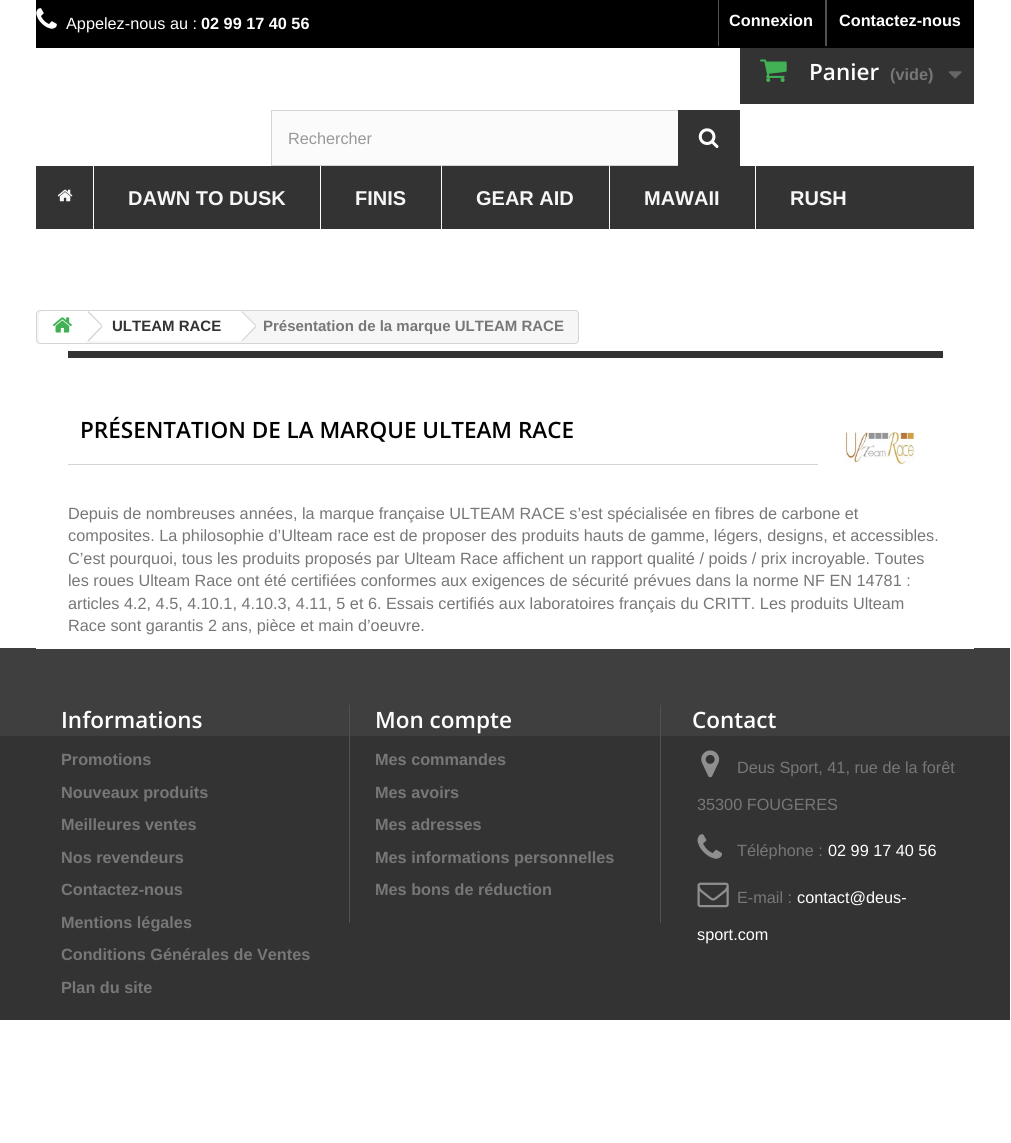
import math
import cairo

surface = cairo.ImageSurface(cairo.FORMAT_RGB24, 1011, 1143)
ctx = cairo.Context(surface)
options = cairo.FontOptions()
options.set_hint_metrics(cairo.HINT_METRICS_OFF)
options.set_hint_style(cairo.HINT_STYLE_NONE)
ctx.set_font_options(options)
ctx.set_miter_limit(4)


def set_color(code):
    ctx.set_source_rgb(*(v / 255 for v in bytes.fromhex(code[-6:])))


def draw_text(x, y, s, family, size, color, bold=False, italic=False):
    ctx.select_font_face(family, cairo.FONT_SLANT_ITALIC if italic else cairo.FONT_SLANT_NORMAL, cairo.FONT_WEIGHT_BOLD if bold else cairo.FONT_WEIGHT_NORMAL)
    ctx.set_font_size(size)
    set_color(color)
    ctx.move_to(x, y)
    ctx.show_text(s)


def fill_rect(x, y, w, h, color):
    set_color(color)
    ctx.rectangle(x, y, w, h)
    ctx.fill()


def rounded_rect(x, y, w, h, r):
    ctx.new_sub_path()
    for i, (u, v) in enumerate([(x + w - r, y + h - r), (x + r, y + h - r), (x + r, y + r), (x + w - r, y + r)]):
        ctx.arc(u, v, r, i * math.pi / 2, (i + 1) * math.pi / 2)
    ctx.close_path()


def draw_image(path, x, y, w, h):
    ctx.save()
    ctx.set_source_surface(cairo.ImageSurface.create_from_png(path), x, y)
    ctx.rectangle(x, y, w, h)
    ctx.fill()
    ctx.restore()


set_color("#ffffff")
ctx.paint()
fill_rect(36, 0, 938, 48, "#000000")
draw_image("assets/img1.png", 36, 8, 21, 21)
draw_text(66, 29, "Appelez-nous au :", "Liberation Sans", 16.25, "#ffffff")
draw_text(201, 29, "02 99 17 40 56", "Liberation Sans", 16.25, "#ffffff", bold=True)
fill_rect(718, 0, 1, 46, "#515151")
draw_text(729, 26, "Connexion", "Liberation Sans", 16.25, "#ffffff", bold=True)
fill_rect(825, 0, 2, 46, "#515151")
draw_text(839, 26, "Contactez-nous", "Liberation Sans", 16.25, "#ffffff", bold=True)
fill_rect(740, 48, 234, 56, "#333333")
draw_image("assets/img2.png", 760, 59, 27, 23)
draw_text(809, 80, "Panier", "Open Sans SemiBold", 22.5, "#ffffff")
draw_text(890, 80, "(vide)", "Liberation Sans", 16.25, "#777777", bold=True)
draw_image("assets/img3.png", 948, 71, 14, 8)
fill_rect(272, 111, 406, 54, "#fbfbfb")
ctx.rectangle(271.5, 110.5, 468, 55)
set_color("#d6d4d4")
ctx.set_line_width(1)
ctx.stroke()
draw_text(288, 144, "Rechercher", "Liberation Sans", 16.25, "#999999")
fill_rect(678, 110, 62, 56, "#333333")
draw_image("assets/img4.png", 698, 128, 21, 20)
fill_rect(36, 166, 938, 63, "#333333")
draw_image("assets/img5.png", 57, 189, 16, 13)
fill_rect(93, 166, 1, 63, "#ffffff")
draw_text(128, 205, "DAWN TO DUSK", "Liberation Sans", 20, "#f6f6f6", bold=True)
fill_rect(320, 166, 1, 63, "#ffffff")
draw_text(355, 205, "FINIS", "Liberation Sans", 20, "#f6f6f6", bold=True)
fill_rect(441, 166, 1, 63, "#ffffff")
draw_text(476, 205, "GEAR AID", "Liberation Sans", 20, "#f6f6f6", bold=True)
fill_rect(609, 166, 1, 63, "#ffffff")
draw_text(644, 205, "MAWAII", "Liberation Sans", 20, "#f6f6f6", bold=True)
fill_rect(755, 166, 1, 63, "#ffffff")
draw_text(790, 205, "RUSH", "Liberation Sans", 20, "#f6f6f6", bold=True)
fill_rect(0, 648, 1010, 88, "#3f3f3f")
fill_rect(36, 648, 938, 1, "#ffffff")
set_color("#f6f6f6")
rounded_rect(36.5, 310.5, 542, 33, 3.5)
ctx.fill_preserve()
set_color("#d6d4d4")
ctx.stroke()
set_color("#ffffff")
ctx.new_path()
ctx.move_to(43, 311)
ctx.line_to(86, 311)
ctx.line_to(86, 343)
ctx.line_to(43, 343)
ctx.curve_to(41, 343, 39, 341, 39, 339)
ctx.line_to(39, 315)
ctx.curve_to(39, 313, 41, 311, 43, 311)
ctx.close_path()
ctx.fill()
draw_image("assets/img6.png", 52, 317, 20, 16)
fill_rect(86, 311, 154, 30, "#ffffff")
set_color("#d6d4d4")
ctx.new_path()
ctx.move_to(88.5, 311)
ctx.line_to(102.5, 325.5)
ctx.line_to(101.5, 326)
ctx.line_to(87.5, 312)
ctx.close_path()
ctx.move_to(101.5, 326)
ctx.line_to(102.5, 327)
ctx.line_to(88.5, 341.5)
ctx.line_to(87.5, 340.5)
ctx.close_path()
ctx.fill()
draw_text(112, 331, "ULTEAM RACE", "Liberation Sans", 15, "#333333", bold=True)
set_color("#ffffff")
ctx.new_path()
ctx.move_to(243, 312)
ctx.line_to(255.5, 324.5)
ctx.curve_to(256.5, 325.5, 256.5, 327, 255.5, 328)
ctx.line_to(243, 340.5)
ctx.curve_to(242, 341.5, 240.5, 341.5, 239.5, 340.5)
ctx.line_to(227, 328)
ctx.curve_to(226, 327, 226, 325.5, 227, 324.5)
ctx.line_to(239.5, 312)
ctx.curve_to(240.5, 311, 242, 311, 243, 312)
ctx.close_path()
ctx.fill()
set_color("#d6d4d4")
ctx.new_path()
ctx.move_to(242, 311)
ctx.line_to(256.5, 325.5)
ctx.line_to(255.5, 326)
ctx.line_to(241.5, 312)
ctx.close_path()
ctx.move_to(255.5, 326)
ctx.line_to(256.5, 327)
ctx.line_to(242, 341.5)
ctx.line_to(241.5, 340.5)
ctx.close_path()
ctx.fill()
draw_text(263, 331, "Présentation de la marque ULTEAM RACE", "Liberation Sans", 15, "#777777", bold=True)
fill_rect(68, 351, 875, 7, "#333333")
fill_rect(68, 464, 750, 1, "#d6d4d4")
draw_text(80, 438, "PRÉSENTATION DE LA MARQUE ULTEAM RACE", "Open Sans SemiBold", 22.5, "#000000")
draw_image("assets/img7.png", 844, 430, 71, 36)
draw_text(68, 519, "Depuis de nombreuses années, la marque française ULTEAM RACE s’est spécialisée en fibres de carbone et", "Liberation Sans", 16.25, "#777777")
draw_text(68, 541, "composites. La philosophie d’Ulteam race est de proposer des produits hauts de gamme, légers, designs, et accessibles.", "Liberation Sans", 16.25, "#777777")
draw_text(68, 564, "C’est pourquoi, tous les produits proposés par Ulteam Race affichent un rapport qualité / poids / prix incroyable. Toutes", "Liberation Sans", 16.25, "#777777")
draw_text(68, 586, "les roues Ulteam Race ont été certifiées conformes aux exigences de sécurité prévues dans la norme NF EN 14781 :", "Liberation Sans", 16.25, "#777777")
draw_text(68, 609, "articles 4.2, 4.5, 4.10.1, 4.10.3, 4.11, 5 et 6. Essais certifiés aux laboratoires français du CRITT. Les produits Ulteam", "Liberation Sans", 16.25, "#777777")
draw_text(68, 631, "Race sont garantis 2 ans, pièce et main d’oeuvre.", "Liberation Sans", 16.25, "#777777")
fill_rect(0, 736, 1010, 284, "#333333")
draw_text(61, 728, "Informations", "Open Sans SemiBold", 22.5, "#ffffff")
draw_text(61, 765, "Promotions", "Liberation Sans", 16.25, "#777777", bold=True)
draw_text(61, 798, "Nouveaux produits", "Liberation Sans", 16.25, "#777777", bold=True)
draw_text(61, 830, "Meilleures ventes", "Liberation Sans", 16.25, "#777777", bold=True)
draw_text(61, 863, "Nos revendeurs", "Liberation Sans", 16.25, "#777777", bold=True)
draw_text(61, 895, "Contactez-nous", "Liberation Sans", 16.25, "#777777", bold=True)
draw_text(61, 928, "Mentions légales", "Liberation Sans", 16.25, "#777777", bold=True)
draw_text(61, 960, "Conditions Générales de Ventes", "Liberation Sans", 16.25, "#777777", bold=True)
draw_text(61, 993, "Plan du site", "Liberation Sans", 16.25, "#777777", bold=True)
fill_rect(660, 705, 1, 218, "#515151")
fill_rect(349, 705, 1, 218, "#515151")
draw_text(375, 728, "Mon compte", "Open Sans SemiBold", 22.5, "#ffffff")
draw_text(375, 765, "Mes commandes", "Liberation Sans", 16.25, "#777777", bold=True)
draw_text(375, 798, "Mes avoirs", "Liberation Sans", 16.25, "#777777", bold=True)
draw_text(375, 830, "Mes adresses", "Liberation Sans", 16.25, "#777777", bold=True)
draw_text(375, 863, "Mes informations personnelles", "Liberation Sans", 16.25, "#777777", bold=True)
draw_text(375, 895, "Mes bons de réduction", "Liberation Sans", 16.25, "#777777", bold=True)
draw_text(692, 728, "Contact", "Open Sans SemiBold", 22.5, "#ffffff")
draw_image("assets/img8.png", 701, 750, 19, 28)
draw_text(737, 773, "Deus Sport, 41, rue de la forêt", "Liberation Sans", 16.25, "#777777")
draw_text(697, 810, "35300 FOUGERES", "Liberation Sans", 16.25, "#777777")
draw_image("assets/img9.png", 697, 834, 25, 25)
draw_text(737, 856, "Téléphone :", "Liberation Sans", 16.25, "#777777")
draw_text(828, 856, "02 99 17 40 56", "Liberation Sans", 16.25, "#ffffff")
draw_image("assets/img10.png", 697, 882, 32, 26)
draw_text(737, 903, "E-mail :", "Liberation Sans", 16.25, "#777777")
draw_text(797, 903, "contact@deus-", "Liberation Sans", 16.25, "#ffffff")
draw_text(697, 940, "sport.com", "Liberation Sans", 16.25, "#ffffff")
surface.write_to_png("output.png")
